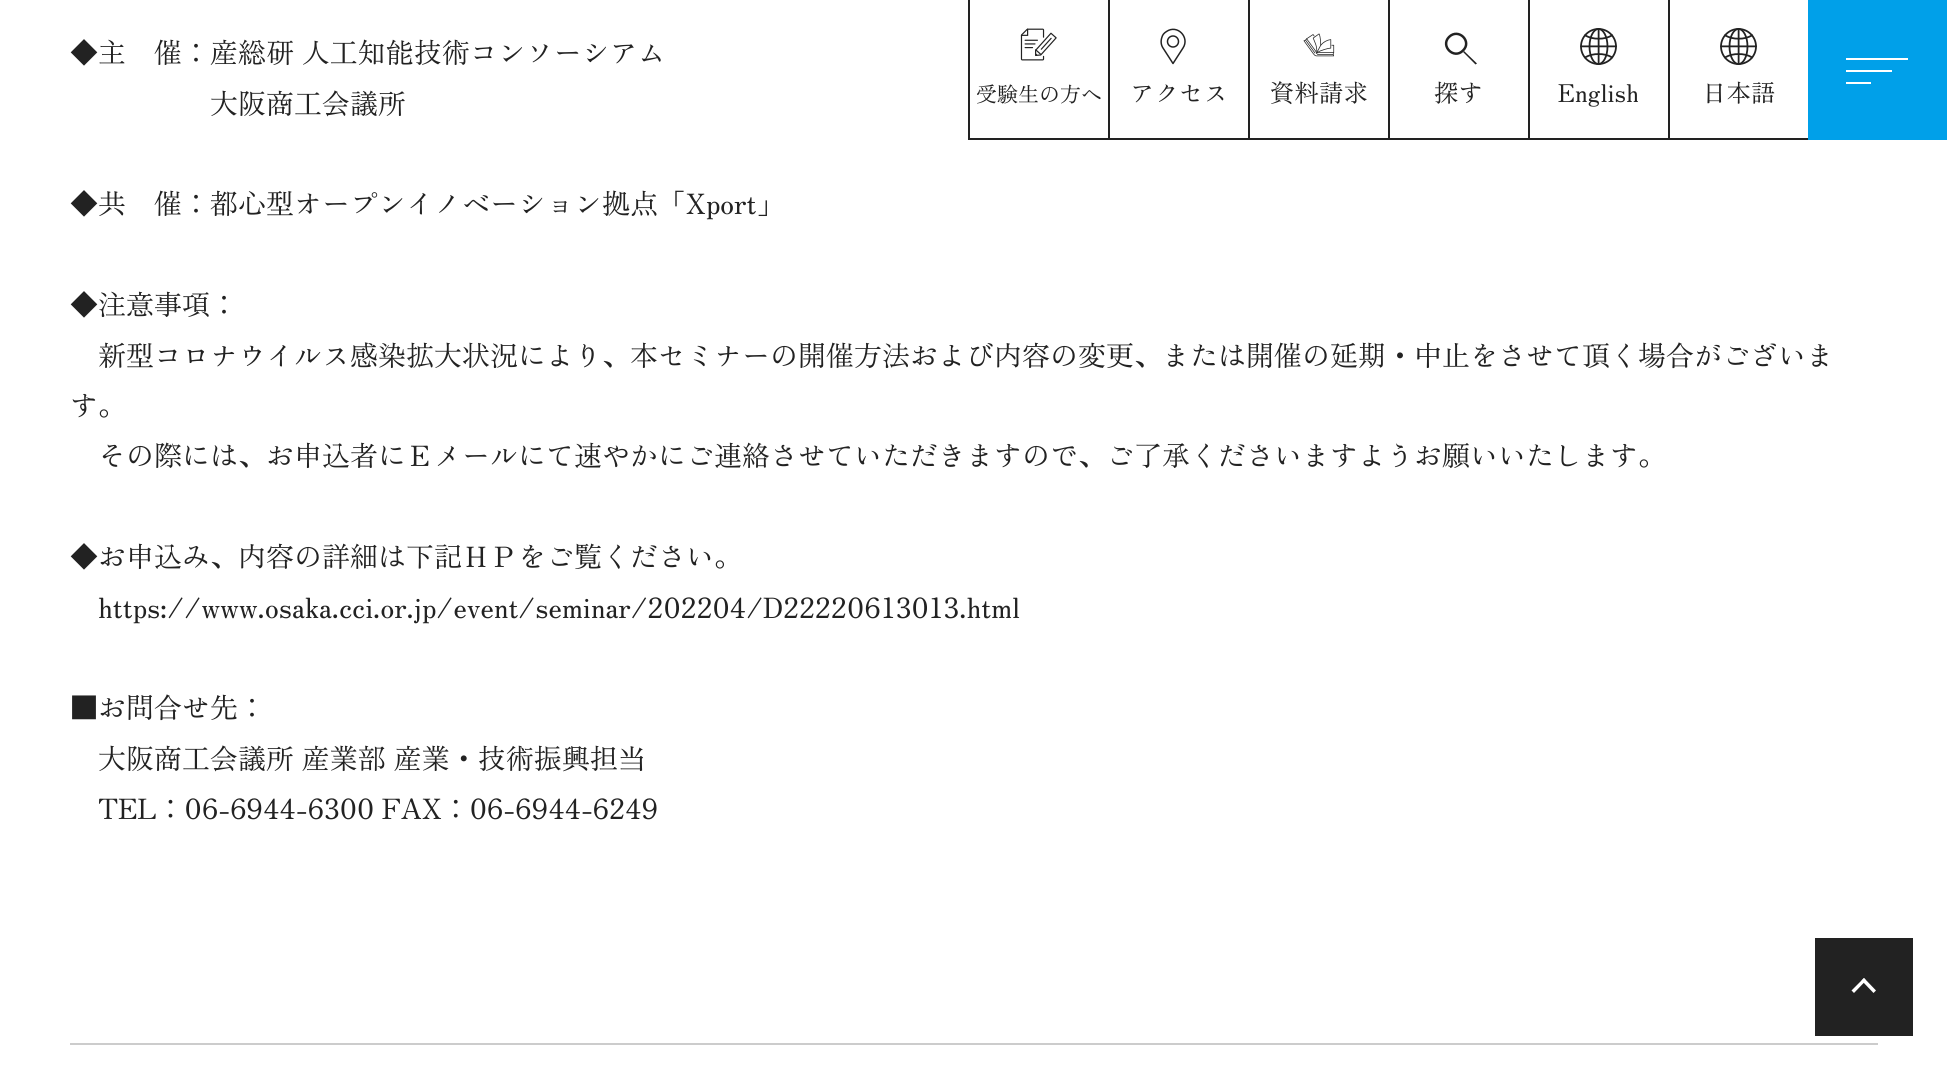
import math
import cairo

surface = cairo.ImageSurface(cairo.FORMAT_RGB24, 1947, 1070)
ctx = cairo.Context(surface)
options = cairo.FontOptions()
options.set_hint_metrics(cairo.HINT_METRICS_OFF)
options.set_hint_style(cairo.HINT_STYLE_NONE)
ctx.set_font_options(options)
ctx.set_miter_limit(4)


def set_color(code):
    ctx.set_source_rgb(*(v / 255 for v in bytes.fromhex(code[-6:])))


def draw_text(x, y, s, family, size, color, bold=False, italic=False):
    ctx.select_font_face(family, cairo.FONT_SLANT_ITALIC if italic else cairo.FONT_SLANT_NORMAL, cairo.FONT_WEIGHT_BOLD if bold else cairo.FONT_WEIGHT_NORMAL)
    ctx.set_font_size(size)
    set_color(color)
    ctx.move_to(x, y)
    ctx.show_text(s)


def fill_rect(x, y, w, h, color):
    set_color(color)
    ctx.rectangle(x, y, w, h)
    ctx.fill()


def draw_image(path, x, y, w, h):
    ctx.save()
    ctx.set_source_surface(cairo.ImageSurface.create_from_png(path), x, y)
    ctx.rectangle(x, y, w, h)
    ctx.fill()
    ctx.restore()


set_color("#ffffff")
ctx.paint()
draw_text(70, 63, "◆主　催：産総研 人工知能技術コンソーシアム", "Zen Old Mincho", 28, "#222222")
draw_text(210, 114, "大阪商工会議所", "Zen Old Mincho", 28, "#222222")
draw_text(70, 214, "◆共　催：都心型オープンイノベーション拠点「Xport」", "Zen Old Mincho", 28, "#222222")
draw_text(70, 315, "◆注意事項：", "Zen Old Mincho", 28, "#222222")
draw_text(98, 366, "新型コロナウイルス感染拡大状況により、本セミナーの開催方法および内容の変更、または開催の延期・中止をさせて頂く場合がございま", "Zen Old Mincho", 28, "#222222")
draw_text(70, 416, "す。", "Zen Old Mincho", 28, "#222222")
draw_text(98, 466, "その際には、お申込者にＥメールにて速やかにご連絡させていただきますので、ご了承くださいますようお願いいたします。", "Zen Old Mincho", 28, "#222222")
draw_text(70, 567, "◆お申込み、内容の詳細は下記ＨＰをご覧ください。", "Zen Old Mincho", 28, "#222222")
draw_text(98, 618, "https://www.osaka.cci.or.jp/event/seminar/202204/D22220613013.html", "Zen Old Mincho", 28, "#222222")
draw_text(70, 718, "■お問合せ先：", "Zen Old Mincho", 28, "#222222")
draw_text(98, 769, "大阪商工会議所 産業部 産業・技術振興担当", "Zen Old Mincho", 28, "#222222")
draw_text(98, 819, "TEL：06-6944-6300 FAX：06-6944-6249", "Zen Old Mincho", 28, "#222222")
fill_rect(70, 1043, 1808, 2, "#cccccc")
fill_rect(968, 138, 840, 2, "#222222")
fill_rect(968, 0, 2, 140, "#222222")
draw_image("assets/img1.png", 1020, 28, 37, 33)
draw_text(976, 102, "受験生の方へ", "Zen Old Mincho", 21, "#222222")
fill_rect(1108, 0, 2, 140, "#222222")
ctx.new_path()
ctx.arc(1173, 41.5, 5.5, 0, 2 * math.pi)
ctx.set_line_width(1.5)
ctx.stroke()
ctx.new_path()
ctx.move_to(1183, 48)
ctx.line_to(1173, 63.5)
ctx.line_to(1163, 48)
ctx.curve_to(1161, 45, 1160.5, 41, 1162, 37)
ctx.curve_to(1162.5, 35, 1164, 33, 1166.5, 31.5)
ctx.curve_to(1177.5, 24, 1190, 37.5, 1183, 48)
ctx.close_path()
ctx.set_line_cap(cairo.LINE_CAP_ROUND)
ctx.set_line_join(cairo.LINE_JOIN_ROUND)
ctx.stroke()
draw_text(1130, 102, "アクセス", "Zen Old Mincho", 24.5, "#222222")
fill_rect(1248, 0, 2, 140, "#222222")
draw_image("assets/img2.png", 1303, 33, 32, 24)
draw_text(1270, 102, "資料請求", "Zen Old Mincho", 24.5, "#222222")
fill_rect(1388, 0, 2, 140, "#222222")
ctx.new_path()
ctx.move_to(1449, 37)
ctx.curve_to(1458.5, 27.5, 1472.5, 41.5, 1463, 50.5)
ctx.curve_to(1454, 60, 1440, 46, 1449, 37)
ctx.close_path()
ctx.set_line_width(2.5)
ctx.set_line_join(cairo.LINE_JOIN_MITER)
ctx.stroke()
ctx.new_path()
ctx.move_to(1463, 52)
ctx.line_to(1464, 51)
ctx.line_to(1477, 63.5)
ctx.line_to(1475.5, 64.5)
ctx.close_path()
ctx.fill()
draw_text(1434, 102, "探す", "Zen Old Mincho", 24.5, "#222222")
fill_rect(1528, 0, 2, 140, "#222222")
draw_image("assets/img3.png", 1580, 28, 37, 37)
draw_text(1558, 102, "English", "Zen Old Mincho", 24.5, "#222222")
fill_rect(1668, 0, 2, 140, "#222222")
draw_image("assets/img3.png", 1720, 28, 37, 37)
draw_text(1702, 102, "日本語", "Zen Old Mincho", 24.5, "#222222")
fill_rect(1808, 0, 139, 140, "#00a0e9")
fill_rect(1846, 58, 62, 2, "#ffffff")
fill_rect(1846, 70, 46, 2, "#ffffff")
fill_rect(1846, 82, 25, 2, "#ffffff")
fill_rect(1815, 938, 98, 98, "#222222")
set_color("#ffffff")
ctx.new_path()
ctx.move_to(1851.5, 990.5)
ctx.line_to(1864, 978)
ctx.line_to(1866, 980.5)
ctx.line_to(1854, 993)
ctx.close_path()
ctx.fill()
ctx.new_path()
ctx.move_to(1861.5, 980.5)
ctx.line_to(1864, 978)
ctx.line_to(1876, 990.5)
ctx.line_to(1873.5, 993)
ctx.close_path()
ctx.fill()
surface.write_to_png("output.png")
